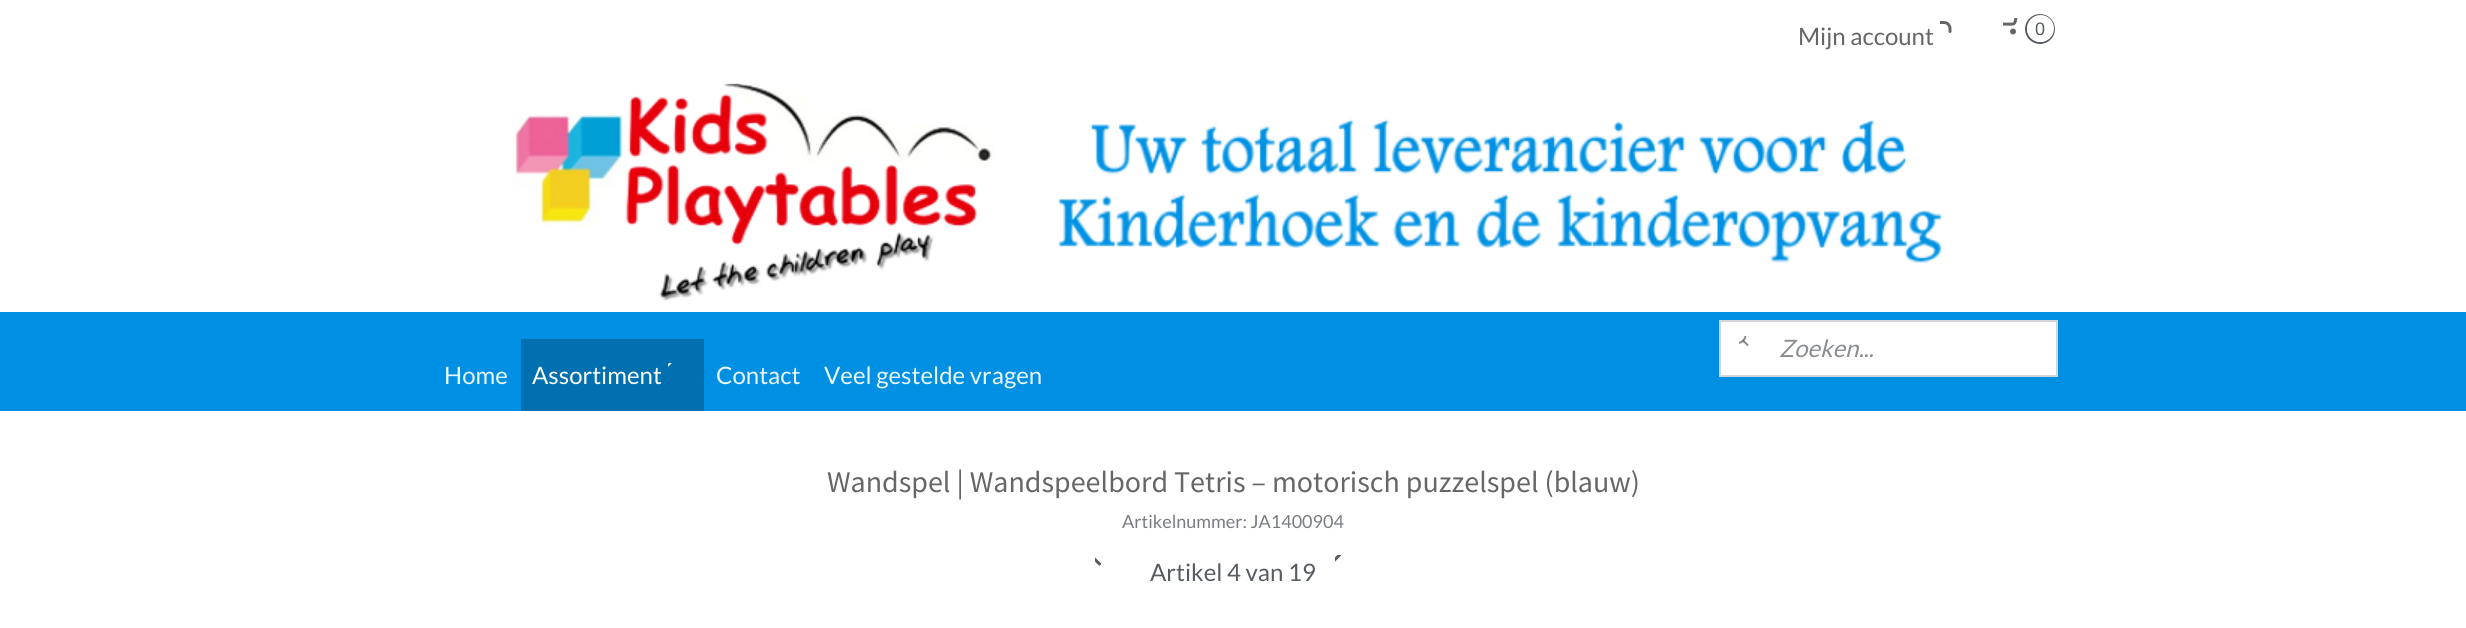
import math
import cairo

surface = cairo.ImageSurface(cairo.FORMAT_RGB24, 2466, 628)
ctx = cairo.Context(surface)
options = cairo.FontOptions()
options.set_hint_metrics(cairo.HINT_METRICS_OFF)
options.set_hint_style(cairo.HINT_STYLE_NONE)
ctx.set_font_options(options)
ctx.set_miter_limit(4)


def set_color(code):
    ctx.set_source_rgb(*(v / 255 for v in bytes.fromhex(code[-6:])))


def draw_text(x, y, s, family, size, color, bold=False, italic=False):
    ctx.select_font_face(family, cairo.FONT_SLANT_ITALIC if italic else cairo.FONT_SLANT_NORMAL, cairo.FONT_WEIGHT_BOLD if bold else cairo.FONT_WEIGHT_NORMAL)
    ctx.set_font_size(size)
    set_color(color)
    ctx.move_to(x, y)
    ctx.show_text(s)


def fill_rect(x, y, w, h, color):
    set_color(color)
    ctx.rectangle(x, y, w, h)
    ctx.fill()


def draw_image(path, x, y, w, h):
    ctx.save()
    ctx.set_source_surface(cairo.ImageSurface.create_from_png(path), x, y)
    ctx.rectangle(x, y, w, h)
    ctx.fill()
    ctx.restore()


set_color("#ffffff")
ctx.paint()
draw_text(1798, 45, "Mijn account", "Lato", 24, "#666666")
draw_image("assets/img1.png", 1940, 21, 12, 12)
draw_image("assets/img2.png", 2003, 18, 15, 17)
ctx.arc(2040, 29, 14, 0, 2 * math.pi)
set_color("#575b62")
ctx.stroke()
set_color("#ffffff")
ctx.arc(2040.5, 28.5, 13.5, 0, 2 * math.pi)
ctx.fill()
draw_text(2035, 35, "0", "Liberation Sans", 18, "#575b62")
draw_image("assets/img3.png", 512, 83, 1430, 218)
fill_rect(0, 312, 2466, 99, "#0090e3")
set_color("#ffffff")
ctx.rectangle(1720, 321, 337, 55)
ctx.fill_preserve()
set_color("#d3d5d9")
ctx.stroke()
draw_image("assets/img4.png", 1739, 336, 10, 10)
draw_text(1779, 357, "Zoeken...", "Lato", 24, "#898c91", italic=True)
draw_text(444, 384, "Home", "Lato", 24, "#ebf8fe")
fill_rect(521, 339, 183, 72, "#0070b0")
draw_image("assets/img5.png", 668, 363, 4, 4)
draw_text(532, 384, "Assortiment", "Lato", 24, "#ffffff")
draw_text(716, 384, "Contact", "Lato", 24, "#ebf8fe")
draw_text(824, 384, "Veel gestelde vragen", "Lato", 24, "#ebf8fe")
draw_text(827, 492, "Wandspel | Wandspeelbord Tetris – motorisch puzzelspel (blauw)", "Source Sans Pro", 30, "#666666")
draw_text(1122, 528, "Artikelnummer: JA1400904", "Lato", 18, "#797c81")
draw_image("assets/img6.png", 1095, 557, 6, 9)
draw_image("assets/img7.png", 1335, 555, 6, 7)
draw_text(1150, 581, "Artikel 4 van 19", "Lato", 24, "#575b62")
surface.write_to_png("output.png")
